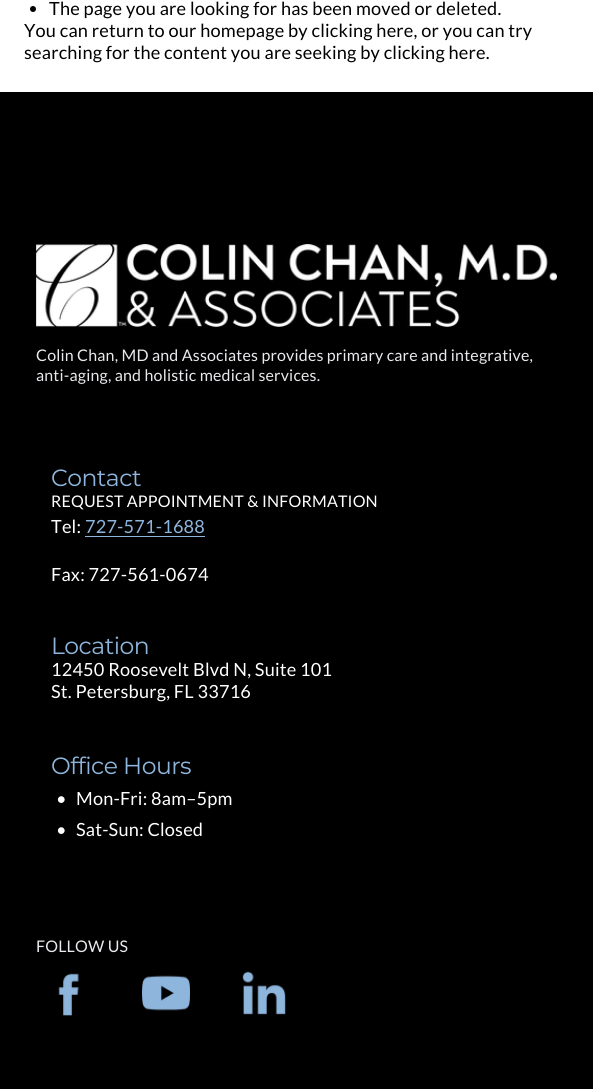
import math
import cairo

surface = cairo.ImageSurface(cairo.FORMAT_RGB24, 593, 1089)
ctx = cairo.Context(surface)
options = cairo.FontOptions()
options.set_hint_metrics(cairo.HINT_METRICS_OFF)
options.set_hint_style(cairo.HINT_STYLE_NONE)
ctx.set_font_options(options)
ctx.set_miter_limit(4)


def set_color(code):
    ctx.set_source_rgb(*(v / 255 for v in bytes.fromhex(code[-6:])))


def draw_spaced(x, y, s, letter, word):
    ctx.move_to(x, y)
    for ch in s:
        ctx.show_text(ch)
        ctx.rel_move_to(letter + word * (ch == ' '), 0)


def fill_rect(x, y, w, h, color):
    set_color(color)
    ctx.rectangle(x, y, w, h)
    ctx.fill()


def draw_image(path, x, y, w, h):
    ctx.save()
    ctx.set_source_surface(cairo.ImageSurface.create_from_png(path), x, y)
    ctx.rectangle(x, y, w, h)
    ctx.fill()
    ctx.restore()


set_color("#ffffff")
ctx.paint()
set_color("#000000")
ctx.arc(33, 9, 3, 0, 2 * math.pi)
ctx.fill()
ctx.select_font_face("Lato")
ctx.set_font_size(18.15)
draw_spaced(49, 15, "The page you are looking for has been moved or deleted.", 0.18, 0)
draw_spaced(24, 37, "You can return to our homepage by clicking here, or you can try", 0.18, 0)
draw_spaced(24, 59, "searching for the content you are seeking by clicking here.", 0.18, 0)
fill_rect(0, 92, 593, 997, "#000000")
draw_image("assets/img1.png", 36, 244, 521, 83)
ctx.set_font_size(16)
set_color("#eaeaee")
draw_spaced(36, 361, "Colin Chan, MD and Associates provides primary care and integrative,", 0.18, 0)
draw_spaced(36, 381, "anti-aging, and holistic medical services.", 0.18, 0)
ctx.select_font_face("Montserrat")
ctx.set_font_size(23.5)
set_color("#8eb6dc")
draw_spaced(51, 486, "Contact", -0.5, 0)
ctx.select_font_face("Lato")
ctx.set_font_size(16)
set_color("#ffffff")
draw_spaced(51, 507, "REQUEST APPOINTMENT & INFORMATION", 0.18, 0)
ctx.set_font_size(18.15)
draw_spaced(51, 533, "Tel:", 0.18, 0)
set_color("#8eb6dc")
draw_spaced(85, 533, "727-571-1688", 0.18, 0)
fill_rect(85, 536, 120, 1, "#8eb6dc")
set_color("#ffffff")
draw_spaced(51, 581, "Fax: 727-561-0674", 0.18, 0)
ctx.select_font_face("Montserrat")
ctx.set_font_size(23.5)
set_color("#8eb6dc")
draw_spaced(51, 654, "Location", -0.5, 0)
ctx.select_font_face("Lato")
ctx.set_font_size(18.15)
set_color("#ffffff")
draw_spaced(51, 676, "12450 Roosevelt Blvd N, Suite 101", 0.18, 0)
draw_spaced(51, 698, "St. Petersburg, FL 33716", 0.18, 0)
ctx.select_font_face("Montserrat")
ctx.set_font_size(23.5)
set_color("#8eb6dc")
draw_spaced(51, 774, "Office Hours", -0.5, 0)
ctx.select_font_face("Lato")
ctx.set_font_size(18.15)
set_color("#ffffff")
draw_spaced(56, 805, "•", 0.18, 0)
draw_spaced(76, 805, "Mon-Fri: 8am–5pm", 0.18, 0)
draw_spaced(56, 836, "•", 0.18, 0)
draw_spaced(76, 836, "Sat-Sun: Closed", 0.18, 0)
ctx.set_font_size(16)
set_color("#eaeaee")
draw_spaced(36, 952, "FOLLOW US", 0.18, 0)
draw_image("assets/img2.png", 58, 973, 21, 43)
draw_image("assets/img3.png", 142, 975, 48, 36)
draw_image("assets/img4.png", 242, 971, 44, 44)
surface.write_to_png("output.png")
